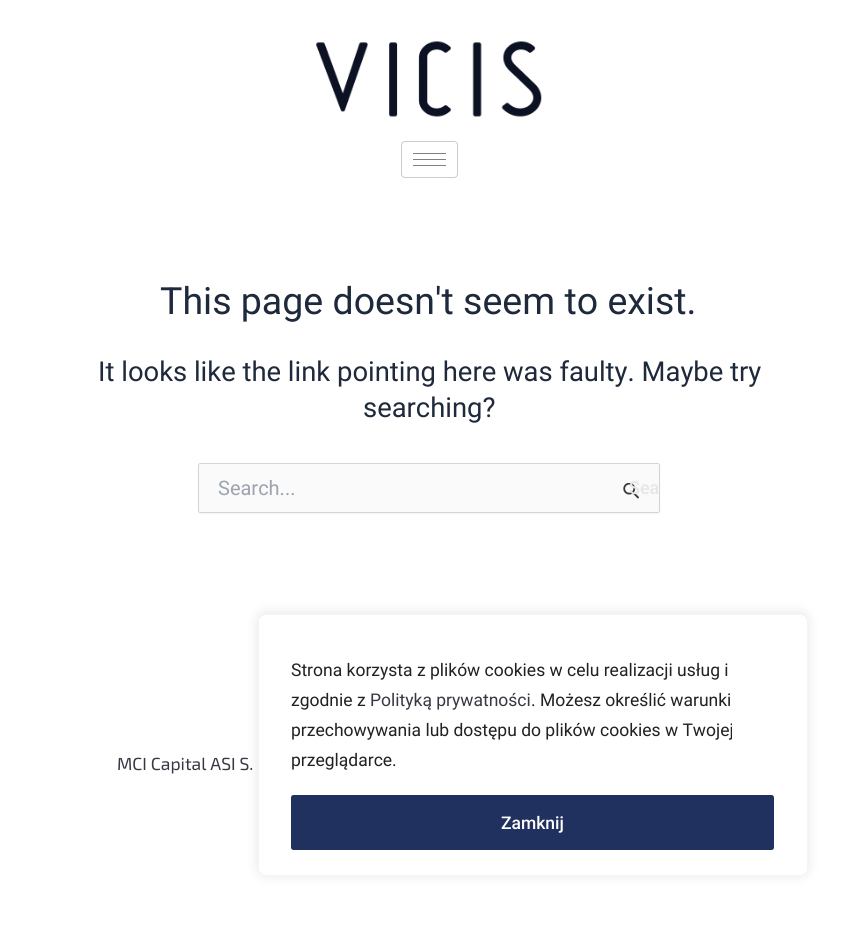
import math
import cairo

surface = cairo.ImageSurface(cairo.FORMAT_RGB24, 857, 926)
ctx = cairo.Context(surface)
options = cairo.FontOptions()
options.set_hint_metrics(cairo.HINT_METRICS_OFF)
options.set_hint_style(cairo.HINT_STYLE_NONE)
ctx.set_font_options(options)
ctx.set_miter_limit(4)


def set_color(code):
    ctx.set_source_rgb(*(v / 255 for v in bytes.fromhex(code[-6:])))


def draw_text(x, y, s, family, size, color, bold=False, italic=False):
    ctx.select_font_face(family, cairo.FONT_SLANT_ITALIC if italic else cairo.FONT_SLANT_NORMAL, cairo.FONT_WEIGHT_BOLD if bold else cairo.FONT_WEIGHT_NORMAL)
    ctx.set_font_size(size)
    set_color(color)
    ctx.move_to(x, y)
    ctx.show_text(s)


def fill_rect(x, y, w, h, color):
    set_color(color)
    ctx.rectangle(x, y, w, h)
    ctx.fill()


def rounded_rect(x, y, w, h, r):
    ctx.new_sub_path()
    for i, (u, v) in enumerate([(x + w - r, y + h - r), (x + r, y + h - r), (x + r, y + r), (x + w - r, y + r)]):
        ctx.arc(u, v, r, i * math.pi / 2, (i + 1) * math.pi / 2)
    ctx.close_path()


def draw_shadow(x, y, w, h, r, blur, alpha):
    ctx.push_group_with_content(cairo.CONTENT_ALPHA)
    ctx.set_operator(cairo.OPERATOR_SOURCE)
    for i in range(15, -16, -2):
        e = blur * i / 6
        if min(w, h) + 2 * e > 0:
            ctx.set_source_rgba(0, 0, 0, alpha * math.erfc((i - 1) / 8.5) / 2)
            rounded_rect(x - e, y - e, w + 2 * e, h + 2 * e, max(0, min(r + e + blur * .6, min(w, h) / 2 + e)))
            ctx.fill()
    ctx.mask(ctx.pop_group())


def draw_image(path, x, y, w, h):
    ctx.save()
    ctx.set_source_surface(cairo.ImageSurface.create_from_png(path), x, y)
    ctx.rectangle(x, y, w, h)
    ctx.fill()
    ctx.restore()


set_color("#ffffff")
ctx.paint()
draw_image("assets/img1.png", 316, 41, 226, 76)
rounded_rect(401.5, 141.5, 56, 36, 3.5)
ctx.set_source_rgba(0, 0, 0, 0.2)
ctx.set_line_width(1)
ctx.stroke()
fill_rect(413, 153, 33, 1, "#808080")
fill_rect(413, 159, 33, 1, "#808080")
fill_rect(413, 165, 33, 1, "#808080")
draw_text(160, 314, "This page doesn't seem to exist.", "Roboto", 37.5, "#1e293b")
draw_text(98, 381, "It looks like the link pointing here was faulty. Maybe try", "Roboto", 27.4, "#1e293b")
draw_text(363, 417, "searching?", "Roboto", 27.4, "#1e293b")
set_color("#000000")
draw_shadow(198, 464, 462, 50, 2.5, 1, 0.05)
set_color("#fafafa")
rounded_rect(198.5, 463.5, 461, 49, 2)
ctx.fill_preserve()
set_color("#d1d5db")
ctx.stroke()
draw_text(218, 495, "Search...", "Roboto", 20, "#9ca3af")
draw_image("assets/img2.png", 623, 483, 16, 16)
draw_text(629, 494, "Sea", "Roboto Medium", 18, "#e6e6e6")
draw_text(117, 770, "MCI Capital ASI S.", "Exo 2", 17.5, "#363944")
set_color("#acabab")
draw_shadow(258, 613, 550, 262, 8, 6, 0.3)
set_color("#ffffff")
rounded_rect(258.5, 614.5, 549, 261, 7.5)
ctx.fill_preserve()
set_color("#f4f4f4")
ctx.stroke()
draw_text(291, 676, "Strona korzysta z plików cookies w celu realizacji usług i", "Roboto", 17.5, "#212121")
draw_text(291, 706, "zgodnie z", "Roboto", 17.5, "#212121")
draw_text(370, 706, "Polityką prywatności", "Roboto", 17.5, "#363944")
draw_text(531, 706, ". Możesz określić warunki", "Roboto", 17.5, "#212121")
draw_text(291, 736, "przechowywania lub dostępu do plików cookies w Twojej", "Roboto", 17.5, "#212121")
draw_text(291, 766, "przeglądarce.", "Roboto", 17.5, "#212121")
set_color("#20305f")
rounded_rect(292.5, 796.5, 480, 52, 1)
ctx.fill_preserve()
ctx.set_line_width(3)
ctx.stroke()
draw_text(501, 829, "Zamknij", "Roboto Medium", 17.5, "#ffffff")
surface.write_to_png("output.png")
